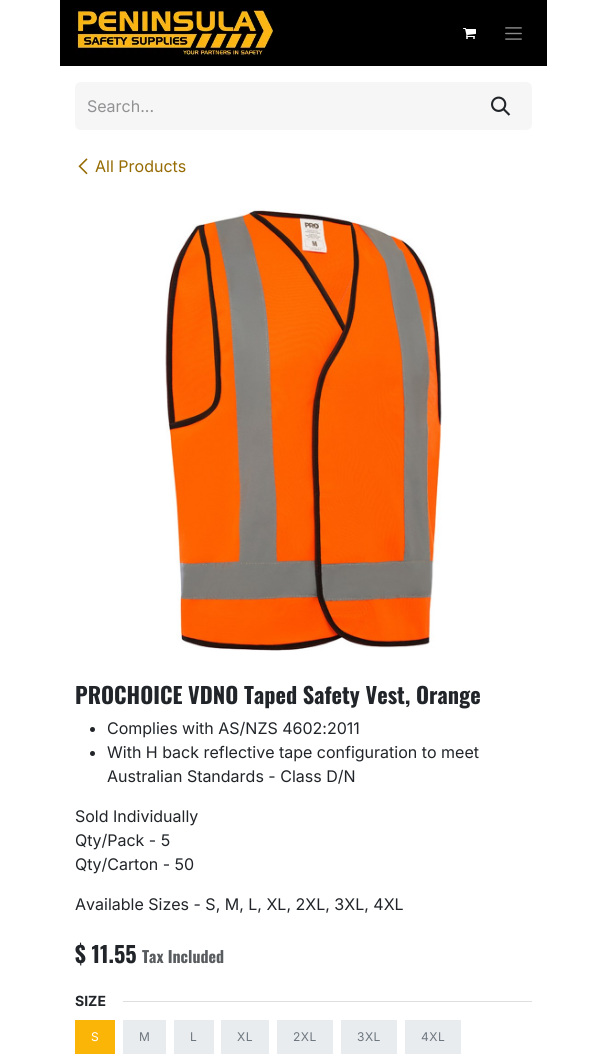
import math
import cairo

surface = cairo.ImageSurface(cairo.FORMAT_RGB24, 607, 1058)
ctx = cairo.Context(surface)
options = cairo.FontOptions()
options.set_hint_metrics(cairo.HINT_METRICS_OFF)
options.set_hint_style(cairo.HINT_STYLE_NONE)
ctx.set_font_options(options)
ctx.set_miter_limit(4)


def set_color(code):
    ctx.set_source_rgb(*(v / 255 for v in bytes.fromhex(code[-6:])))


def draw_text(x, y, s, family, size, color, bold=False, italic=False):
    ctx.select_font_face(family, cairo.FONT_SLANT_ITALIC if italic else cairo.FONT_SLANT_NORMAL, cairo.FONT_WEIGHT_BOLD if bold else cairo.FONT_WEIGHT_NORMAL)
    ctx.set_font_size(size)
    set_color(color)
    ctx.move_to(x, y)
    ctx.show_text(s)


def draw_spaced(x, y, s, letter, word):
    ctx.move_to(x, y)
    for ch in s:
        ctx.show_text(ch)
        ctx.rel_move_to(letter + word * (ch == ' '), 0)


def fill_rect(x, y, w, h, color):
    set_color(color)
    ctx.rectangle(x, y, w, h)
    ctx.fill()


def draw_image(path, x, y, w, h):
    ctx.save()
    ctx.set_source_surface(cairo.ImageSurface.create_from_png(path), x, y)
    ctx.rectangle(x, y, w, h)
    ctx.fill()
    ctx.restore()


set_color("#ffffff")
ctx.paint()
fill_rect(60, 0, 487, 66, "#000000")
draw_image("assets/img1.png", 75, 8, 198, 50)
draw_image("assets/img2.png", 463, 28, 13, 11)
draw_image("assets/img3.png", 505, 27, 17, 13)
set_color("#f7f6f6")
ctx.new_path()
ctx.move_to(81, 82)
ctx.line_to(470, 82)
ctx.line_to(470, 130)
ctx.line_to(81, 130)
ctx.curve_to(77.5, 130, 75, 127.5, 75, 124)
ctx.line_to(75, 88)
ctx.curve_to(75, 84.5, 77.5, 82, 81, 82)
ctx.close_path()
ctx.fill()
draw_text(87, 112, "Search...", "Inter", 16, "#909294")
set_color("#f7f6f6")
ctx.new_path()
ctx.move_to(469, 82)
ctx.line_to(526, 82)
ctx.curve_to(529.5, 82, 532, 84.5, 532, 88)
ctx.line_to(532, 124)
ctx.curve_to(532, 127.5, 529.5, 130, 526, 130)
ctx.line_to(469, 130)
ctx.close_path()
ctx.fill()
draw_image("assets/img4.png", 491, 96, 20, 20)
draw_image("assets/img5.png", 78, 158, 10, 17)
draw_text(95, 172, "All Products", "Inter", 16, "#956b02")
draw_image("assets/img6.png", 165, 209, 277, 442)
draw_text(75, 704, "PROCHOICE VDNO Taped Safety Vest, Orange", "Oswald", 22.25, "#212529", bold=True)
ctx.new_path()
ctx.arc(92.5, 729.5, 2.5, 0, 2 * math.pi)
ctx.fill()
draw_text(107, 734, "Complies with AS/NZS 4602:2011", "Inter", 16, "#212529")
ctx.new_path()
ctx.arc(92.5, 753.5, 2.5, 0, 2 * math.pi)
ctx.fill()
draw_text(107, 758, "With H back reflective tape configuration to meet", "Inter", 16, "#212529")
draw_text(107, 782, "Australian Standards - Class D/N", "Inter", 16, "#212529")
draw_text(75, 822, "Sold Individually", "Inter", 16, "#212529")
draw_text(75, 846, "Qty/Pack - 5", "Inter", 16, "#212529")
draw_text(75, 870, "Qty/Carton - 50", "Inter", 16, "#212529")
draw_text(75, 910, "Available Sizes - S, M, L, XL, 2XL, 3XL, 4XL", "Inter", 16, "#212529")
draw_text(75, 963, "$ 11.55", "Oswald", 22.25, "#212529", bold=True)
draw_text(142, 963, "Tax Included", "Oswald", 16, "#595c5f", bold=True)
draw_text(75, 1006, "SIZE", "Inter", 14, "#212529", bold=True)
fill_rect(123, 1001, 409, 1, "#dededf")
fill_rect(75, 1020, 40, 34, "#fbb507")
ctx.select_font_face("Inter")
ctx.set_font_size(12)
set_color("#ffffff")
draw_spaced(91, 1041, "S", 0.5, 0)
fill_rect(123, 1020, 43, 34, "#e9ecef")
set_color("#6c757d")
draw_spaced(139, 1041, "M", 0.5, 0)
fill_rect(174, 1020, 40, 34, "#e9ecef")
set_color("#6c757d")
draw_spaced(190, 1041, "L", 0.5, 0)
fill_rect(221, 1020, 48, 34, "#e9ecef")
set_color("#6c757d")
draw_spaced(237, 1041, "XL", 0.5, 0)
fill_rect(277, 1020, 56, 34, "#e9ecef")
set_color("#6c757d")
draw_spaced(293, 1041, "2XL", 0.5, 0)
fill_rect(341, 1020, 56, 34, "#e9ecef")
set_color("#6c757d")
draw_spaced(357, 1041, "3XL", 0.5, 0)
fill_rect(405, 1020, 56, 34, "#e9ecef")
set_color("#6c757d")
draw_spaced(421, 1041, "4XL", 0.5, 0)
surface.write_to_png("output.png")
